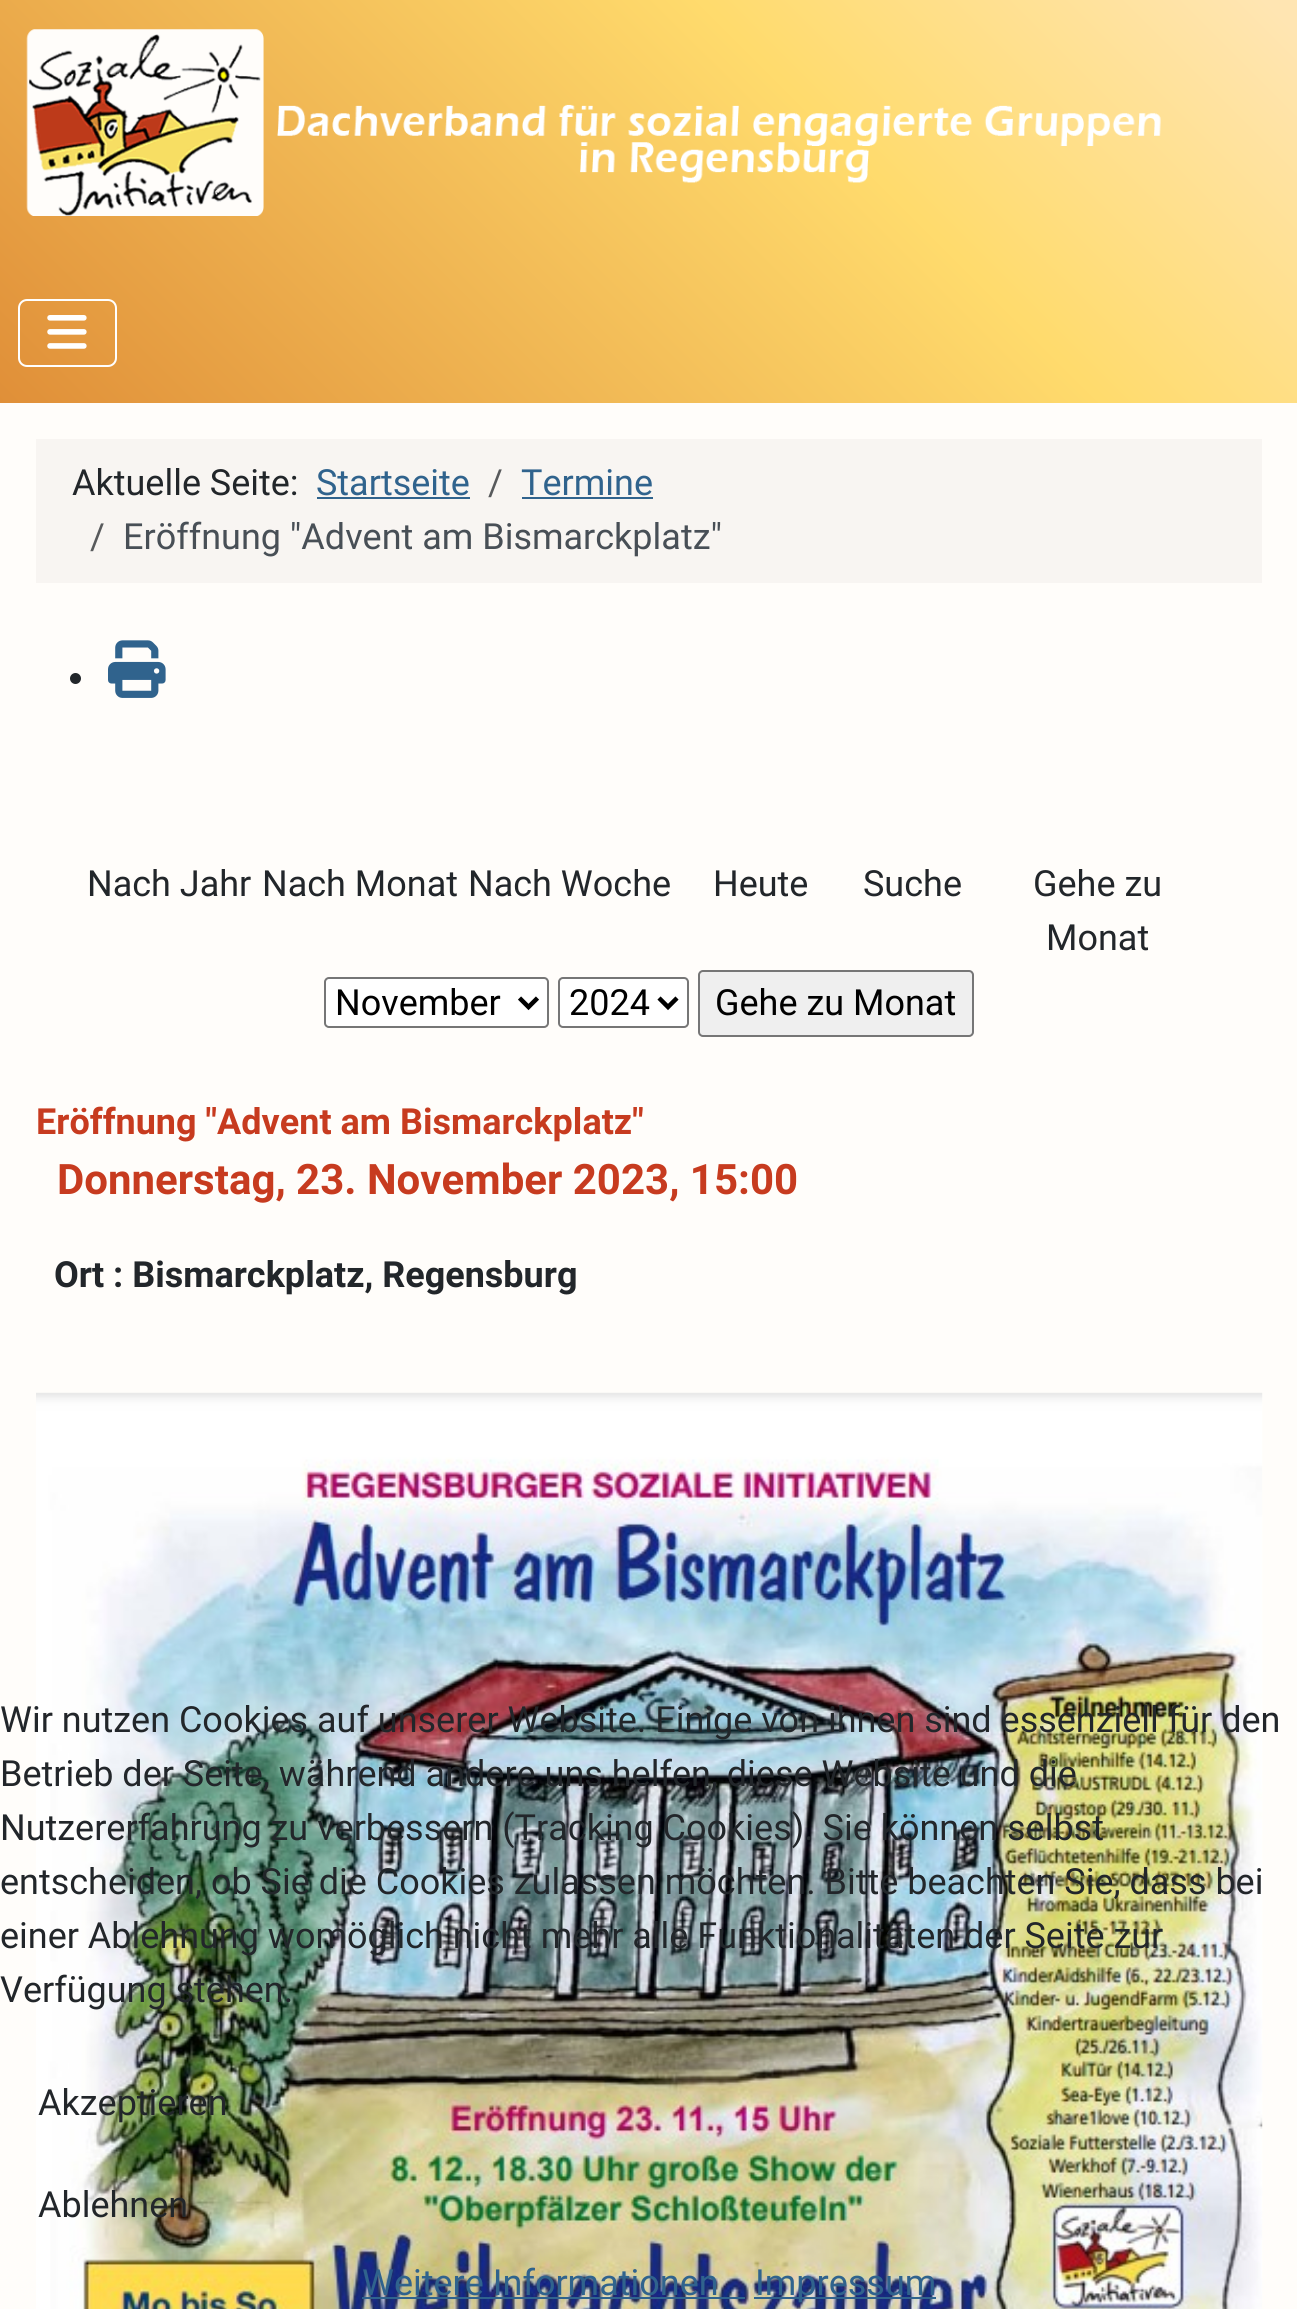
import math
import cairo

surface = cairo.ImageSurface(cairo.FORMAT_RGB24, 1297, 2309)
ctx = cairo.Context(surface)
options = cairo.FontOptions()
options.set_hint_metrics(cairo.HINT_METRICS_OFF)
options.set_hint_style(cairo.HINT_STYLE_NONE)
ctx.set_font_options(options)
ctx.set_miter_limit(4)


def set_color(code):
    ctx.set_source_rgb(*(v / 255 for v in bytes.fromhex(code[-6:])))


def draw_text(x, y, s, family, size, color, bold=False, italic=False):
    ctx.select_font_face(family, cairo.FONT_SLANT_ITALIC if italic else cairo.FONT_SLANT_NORMAL, cairo.FONT_WEIGHT_BOLD if bold else cairo.FONT_WEIGHT_NORMAL)
    ctx.set_font_size(size)
    set_color(color)
    ctx.move_to(x, y)
    ctx.show_text(s)


def fill_rect(x, y, w, h, color):
    set_color(color)
    ctx.rectangle(x, y, w, h)
    ctx.fill()


def rounded_rect(x, y, w, h, r):
    ctx.new_sub_path()
    for i, (u, v) in enumerate([(x + w - r, y + h - r), (x + r, y + h - r), (x + r, y + r), (x + w - r, y + r)]):
        ctx.arc(u, v, r, i * math.pi / 2, (i + 1) * math.pi / 2)
    ctx.close_path()


def draw_image(path, x, y, w, h):
    ctx.save()
    ctx.set_source_surface(cairo.ImageSurface.create_from_png(path), x, y)
    ctx.rectangle(x, y, w, h)
    ctx.fill()
    ctx.restore()


set_color("#fffdfa")
ctx.paint()
gradient = cairo.LinearGradient(224, 627, 1074, -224)
gradient.add_color_stop_rgba(0, 0.741, 0.227, 0.102, 1)
gradient.add_color_stop_rgba(0, 0.878, 0.561, 0.22, 1)
gradient.add_color_stop_rgba(0.65, 1, 0.859, 0.427, 1)
gradient.add_color_stop_rgba(0.98, 1, 0.898, 0.698, 1)
ctx.set_source(gradient)
ctx.rectangle(0, 0, 1297, 403)
ctx.fill()
draw_image("assets/img1.png", 26, 29, 1135, 187)
rounded_rect(19, 300, 97, 66, 8)
set_color("#ffffff")
ctx.stroke()
draw_image("assets/img2.png", 47, 315, 40, 34)
fill_rect(36, 439, 1226, 144, "#f8f5f2")
draw_text(72, 495, "Aktuelle Seite:", "Roboto", 36, "#22262a")
draw_text(316, 495, "Startseite", "Roboto", 36, "#30638d")
fill_rect(317, 497, 153, 2, "#30638d")
draw_text(488, 495, "/", "Roboto", 36, "#585a5c")
draw_text(521, 495, "Termine", "Roboto", 36, "#30638d")
fill_rect(522, 497, 131, 2, "#30638d")
draw_text(90, 549, "/", "Roboto", 36, "#585a5c")
draw_text(123, 549, "Eröffnung \"Advent am Bismarckplatz\"", "Roboto", 36, "#484f56")
set_color("#22262a")
ctx.new_path()
ctx.arc(75.5, 678.5, 5.5, 0, 2 * math.pi)
ctx.fill()
draw_image("assets/img3.png", 108, 640, 58, 58)
draw_text(87, 896, "Nach Jahr", "Roboto", 36, "#22262a")
draw_text(262, 896, "Nach Monat", "Roboto", 36, "#22262a")
draw_text(468, 896, "Nach Woche", "Roboto", 36, "#22262a")
draw_text(713, 896, "Heute", "Roboto", 36, "#22262a")
draw_text(863, 896, "Suche", "Roboto", 36, "#22262a")
draw_text(1033, 896, "Gehe zu", "Roboto", 36, "#22262a")
draw_text(1046, 950, "Monat", "Roboto", 36, "#22262a")
set_color("#ffffff")
rounded_rect(325, 978, 223, 49, 4)
ctx.fill_preserve()
set_color("#767676")
ctx.stroke()
ctx.new_path()
ctx.move_to(519.5, 998)
ctx.line_to(528.5, 1007)
ctx.line_to(537.5, 998)
set_color("#000000")
ctx.set_line_width(4.5)
ctx.stroke()
draw_text(335, 1015, "November", "Roboto", 36, "#000000")
set_color("#ffffff")
rounded_rect(559, 978, 129, 49, 4)
ctx.fill_preserve()
set_color("#767676")
ctx.set_line_width(2)
ctx.stroke()
ctx.new_path()
ctx.move_to(659, 998)
ctx.line_to(668, 1007)
ctx.line_to(677, 998)
set_color("#000000")
ctx.set_line_width(4.5)
ctx.stroke()
draw_text(569, 1015, "2024", "Roboto", 36, "#000000")
set_color("#efefef")
rounded_rect(699, 971, 274, 65, 4)
ctx.fill_preserve()
set_color("#767676")
ctx.set_line_width(2)
ctx.stroke()
draw_text(715, 1015, "Gehe zu Monat", "Roboto", 36, "#000000")
draw_text(36, 1134, "Eröffnung \"Advent am Bismarckplatz\"", "Roboto", 36, "#c73b1f", bold=True)
draw_text(57, 1194, "Donnerstag, 23. November 2023, 15:00", "Roboto", 42, "#c73b1f", bold=True)
draw_text(54, 1287, "Ort : Bismarckplatz, Regensburg", "Roboto", 36, "#22262a", bold=True)
draw_image("assets/img4.png", 36, 1392, 1227, 917)
draw_text(0, 1732, "Wir nutzen Cookies auf unserer Website. Einige von ihnen sind essenziell für den", "Roboto", 36, "#22262a")
draw_text(0, 1786, "Betrieb der Seite, während andere uns helfen, diese Website und die", "Roboto", 36, "#22262a")
draw_text(0, 1840, "Nutzererfahrung zu verbessern (Tracking Cookies). Sie können selbst", "Roboto", 36, "#22262a")
draw_text(0, 1894, "entscheiden, ob Sie die Cookies zulassen möchten. Bitte beachten Sie, dass bei", "Roboto", 36, "#22262a")
draw_text(0, 1948, "einer Ablehnung womöglich nicht mehr alle Funktionalitäten der Seite zur", "Roboto", 36, "#22262a")
draw_text(0, 2002, "Verfügung stehen.", "Roboto", 36, "#22262a")
draw_text(38, 2115, "Akzeptieren", "Roboto", 36, "#22262a")
draw_text(38, 2217, "Ablehnen", "Roboto", 36, "#22262a")
draw_text(362, 2295, "Weitere Informationen", "Roboto", 36, "#30638d")
fill_rect(362, 2297, 383, 2, "#30638d")
fill_rect(754, 2297, 182, 2, "#30638d")
draw_text(755, 2295, "Impressum", "Roboto", 36, "#30638d")
surface.write_to_png("output.png")
